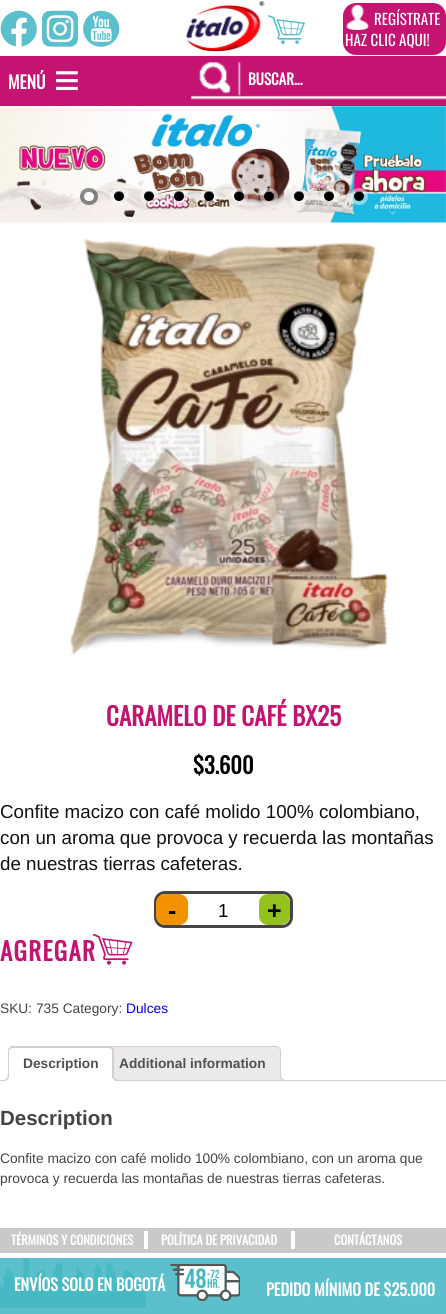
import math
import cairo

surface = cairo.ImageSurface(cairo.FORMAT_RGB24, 446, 1314)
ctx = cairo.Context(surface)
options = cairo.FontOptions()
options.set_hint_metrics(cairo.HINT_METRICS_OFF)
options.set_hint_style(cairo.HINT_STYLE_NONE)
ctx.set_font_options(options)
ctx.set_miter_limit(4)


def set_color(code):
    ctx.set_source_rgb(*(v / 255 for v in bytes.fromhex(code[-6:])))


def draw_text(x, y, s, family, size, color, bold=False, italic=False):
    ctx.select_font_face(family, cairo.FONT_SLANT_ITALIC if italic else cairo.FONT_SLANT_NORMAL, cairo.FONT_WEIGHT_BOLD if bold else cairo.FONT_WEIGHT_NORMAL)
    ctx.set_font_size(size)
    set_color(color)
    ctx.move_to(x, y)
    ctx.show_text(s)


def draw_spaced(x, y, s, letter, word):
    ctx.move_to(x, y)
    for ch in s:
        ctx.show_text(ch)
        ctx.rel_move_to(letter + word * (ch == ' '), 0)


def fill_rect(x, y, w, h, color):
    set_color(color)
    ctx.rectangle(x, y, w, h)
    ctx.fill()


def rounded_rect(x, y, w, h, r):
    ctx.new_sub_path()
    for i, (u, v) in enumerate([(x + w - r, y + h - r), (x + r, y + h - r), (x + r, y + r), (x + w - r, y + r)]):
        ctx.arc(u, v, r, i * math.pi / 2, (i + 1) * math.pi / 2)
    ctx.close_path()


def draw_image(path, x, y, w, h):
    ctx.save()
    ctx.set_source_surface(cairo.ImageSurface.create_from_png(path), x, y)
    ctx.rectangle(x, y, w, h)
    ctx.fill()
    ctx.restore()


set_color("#ffffff")
ctx.paint()
draw_image("assets/img1.png", 0, 10, 37, 37)
draw_image("assets/img2.png", 42, 10, 36, 37)
draw_image("assets/img3.png", 83, 10, 37, 37)
draw_image("assets/img4.png", 185, 1, 80, 51)
draw_image("assets/img5.png", 268, 15, 37, 29)
set_color("#c51371")
rounded_rect(343, 3, 103, 52, 13)
ctx.fill()
draw_image("assets/img6.png", 346, 5, 24, 25)
draw_text(374, 25, "REGÍSTRATE", "Oswald", 15, "#ffffff")
draw_text(345, 46, "HAZ CLIC AQUI!", "Oswald", 15, "#ffffff")
fill_rect(0, 56, 446, 50, "#c51371")
draw_text(8, 89, "MENÚ", "Oswald", 17.5, "#ffffff", bold=True)
draw_image("assets/img7.png", 55, 71, 23, 20)
draw_image("assets/img8.png", 191, 62, 255, 38)
draw_text(248, 85, "BUSCAR...", "Oswald", 15, "#ffffff", bold=True)
draw_image("assets/img9.png", 0, 106, 446, 117)
ctx.arc(89, 196, 5, 0, 2 * math.pi)
ctx.fill()
rounded_rect(82, 190, 14, 13, 6.5)
ctx.set_source_rgba(0, 0, 0, 0.44)
ctx.set_line_width(4)
ctx.stroke()
set_color("#000000")
ctx.arc(119, 196, 5, 0, 2 * math.pi)
ctx.fill()
rounded_rect(112, 190, 14, 13, 6.5)
ctx.set_source_rgba(1, 1, 1, 0.44)
ctx.stroke()
set_color("#000000")
ctx.arc(149, 196, 5, 0, 2 * math.pi)
ctx.fill()
rounded_rect(142, 190, 14, 13, 6.5)
ctx.set_source_rgba(1, 1, 1, 0.44)
ctx.stroke()
set_color("#000000")
ctx.arc(179, 196, 5, 0, 2 * math.pi)
ctx.fill()
rounded_rect(172, 190, 14, 13, 6.5)
ctx.set_source_rgba(1, 1, 1, 0.44)
ctx.stroke()
set_color("#000000")
ctx.arc(209, 196, 5, 0, 2 * math.pi)
ctx.fill()
rounded_rect(202, 190, 14, 13, 6.5)
ctx.set_source_rgba(1, 1, 1, 0.44)
ctx.stroke()
set_color("#000000")
ctx.arc(239, 196, 5, 0, 2 * math.pi)
ctx.fill()
rounded_rect(232, 190, 14, 13, 6.5)
ctx.set_source_rgba(1, 1, 1, 0.44)
ctx.stroke()
set_color("#000000")
ctx.arc(269, 196, 5, 0, 2 * math.pi)
ctx.fill()
rounded_rect(262, 190, 14, 13, 6.5)
ctx.set_source_rgba(1, 1, 1, 0.44)
ctx.stroke()
set_color("#000000")
ctx.arc(299, 196, 5, 0, 2 * math.pi)
ctx.fill()
rounded_rect(292, 190, 14, 13, 6.5)
ctx.set_source_rgba(1, 1, 1, 0.44)
ctx.stroke()
set_color("#000000")
ctx.arc(329, 196, 5, 0, 2 * math.pi)
ctx.fill()
rounded_rect(322, 190, 14, 13, 6.5)
ctx.set_source_rgba(1, 1, 1, 0.44)
ctx.stroke()
set_color("#000000")
ctx.arc(359, 196, 5, 0, 2 * math.pi)
ctx.fill()
rounded_rect(352, 190, 14, 13, 6.5)
ctx.set_source_rgba(1, 1, 1, 0.44)
ctx.stroke()
draw_image("assets/img10.png", 69, 238, 319, 417)
draw_text(106, 726, "CARAMELO DE CAFÉ BX25", "Oswald", 25, "#c51371", bold=True)
draw_text(193, 774, "$3.600", "Oswald", 22.5, "#000000", bold=True)
draw_text(0, 818, "Confite macizo con café molido 100% colombiano,", "Liberation Sans", 18.75, "#111111")
draw_text(0, 844, "con un aroma que provoca y recuerda las montañas", "Liberation Sans", 18.75, "#111111")
draw_text(0, 870, "de nuestras tierras cafeteras.", "Liberation Sans", 18.75, "#111111")
rounded_rect(155.5, 892.5, 136, 34, 9.5)
set_color("#444444")
ctx.set_line_width(3)
ctx.stroke()
set_color("#f39200")
rounded_rect(156.5, 894.5, 31, 30, 8.5)
ctx.fill_preserve()
ctx.set_line_width(1)
ctx.stroke()
draw_text(168, 919, "-", "Liberation Sans", 25, "#000000", bold=True)
draw_text(218, 917, "1", "Liberation Sans", 18.75, "#000000")
set_color("#95c11f")
rounded_rect(259.5, 894.5, 30, 30, 8.5)
ctx.fill_preserve()
ctx.stroke()
draw_text(267, 919, "+", "Liberation Sans", 25, "#000000", bold=True)
draw_image("assets/img11.png", 93, 934, 40, 31)
ctx.select_font_face("Oswald", cairo.FONT_SLANT_NORMAL, cairo.FONT_WEIGHT_BOLD)
set_color("#c51371")
draw_spaced(0, 961, "AGREGAR", 1.25, 0)
draw_text(0, 1013, "SKU: 735 Category:", "Liberation Sans", 13.75, "#444444")
draw_text(126, 1013, "Dulces", "Liberation Sans", 13.75, "#0000ee")
set_color("#ebe9eb")
ctx.new_path()
ctx.move_to(110, 1046.5)
ctx.line_to(276, 1046.5)
ctx.curve_to(278.5, 1046.5, 280.5, 1048.5, 280.5, 1051)
ctx.line_to(280.5, 1080.5)
ctx.line_to(105.5, 1080.5)
ctx.line_to(105.5, 1051)
ctx.curve_to(105.5, 1048.5, 107.5, 1046.5, 110, 1046.5)
ctx.close_path()
ctx.fill_preserve()
set_color("#d3ced2")
ctx.stroke()
ctx.save()
ctx.rectangle(0, 1046, 446, 35)
ctx.clip()
set_color("#ebe9eb")
ctx.new_path()
ctx.move_to(278, 1078)
ctx.curve_to(278, 1082, 280, 1084, 284, 1084)
ctx.line_to(284, 1081)
ctx.curve_to(282.5, 1081, 281, 1079.5, 280.5, 1078)
ctx.close_path()
ctx.fill()
ctx.restore()
ctx.set_fill_rule(cairo.FILL_RULE_EVEN_ODD)
ctx.new_path()
ctx.move_to(280, 1075)
ctx.line_to(286, 1075)
ctx.line_to(286, 1081)
ctx.curve_to(283, 1081, 280, 1080, 280, 1076)
ctx.close_path()
ctx.move_to(281, 1075)
ctx.line_to(286, 1075)
ctx.line_to(286, 1080)
ctx.curve_to(284, 1080, 281, 1079, 281, 1076)
ctx.close_path()
ctx.fill()
fill_rect(0, 1080, 446, 1, "#d3ced2")
set_color("#ffffff")
ctx.new_path()
ctx.move_to(13, 1046)
ctx.line_to(109, 1046)
ctx.curve_to(112, 1046, 114, 1048, 114, 1051)
ctx.line_to(114, 1081)
ctx.line_to(8, 1081)
ctx.line_to(8, 1051)
ctx.curve_to(8, 1048, 10, 1046, 13, 1046)
ctx.close_path()
ctx.fill()
set_color("#d3ced2")
ctx.set_fill_rule(cairo.FILL_RULE_WINDING)
ctx.new_path()
ctx.move_to(12, 1048)
ctx.line_to(10, 1049)
ctx.line_to(9, 1048)
ctx.line_to(11, 1046)
ctx.line_to(111, 1046)
ctx.line_to(113, 1047)
ctx.line_to(111, 1049)
ctx.line_to(109, 1048)
ctx.close_path()
ctx.fill()
ctx.new_path()
ctx.move_to(114, 1081)
ctx.line_to(112, 1079.5)
ctx.line_to(112, 1051)
ctx.curve_to(112, 1050, 112, 1049, 111, 1049)
ctx.line_to(112.5, 1047.5)
ctx.line_to(114, 1049.5)
ctx.close_path()
ctx.fill()
set_color("#ffffff")
ctx.new_path()
ctx.move_to(114, 1081)
ctx.line_to(8, 1081)
ctx.line_to(9, 1080)
ctx.line_to(112, 1080)
ctx.close_path()
ctx.fill()
set_color("#d3ced2")
ctx.new_path()
ctx.move_to(8, 1081)
ctx.line_to(8, 1051)
ctx.curve_to(8, 1049.5, 8.5, 1048.5, 9, 1047.5)
ctx.line_to(10, 1048.5)
ctx.curve_to(9.5, 1049, 9, 1050, 9, 1051)
ctx.line_to(9, 1080)
ctx.close_path()
ctx.fill()
draw_text(23, 1068, "Description", "Liberation Sans", 13.75, "#515151", bold=True)
ctx.save()
ctx.rectangle(0, 1046, 446, 35)
ctx.clip()
set_color("#ffffff")
ctx.new_path()
ctx.move_to(5, 1081)
ctx.line_to(5, 1084)
ctx.curve_to(9, 1084, 11, 1082, 11, 1078)
ctx.line_to(8.5, 1078)
ctx.curve_to(8, 1079.5, 6.5, 1080.5, 5, 1081)
ctx.close_path()
ctx.fill()
ctx.restore()
set_color("#d3ced2")
ctx.set_fill_rule(cairo.FILL_RULE_EVEN_ODD)
ctx.new_path()
ctx.move_to(2.5, 1075)
ctx.line_to(9, 1075)
ctx.curve_to(9, 1079.5, 7, 1081, 2.5, 1081)
ctx.close_path()
ctx.move_to(2.5, 1075)
ctx.line_to(7.5, 1075)
ctx.curve_to(7.5, 1078.5, 6, 1080, 2.5, 1080)
ctx.close_path()
ctx.fill()
ctx.save()
ctx.set_fill_rule(cairo.FILL_RULE_WINDING)
ctx.rectangle(0, 1046, 446, 35)
ctx.clip()
set_color("#ffffff")
ctx.new_path()
ctx.move_to(110, 1078)
ctx.curve_to(110, 1082, 112, 1084, 116, 1084)
ctx.line_to(116, 1081)
ctx.curve_to(114.5, 1080.5, 113.5, 1079.5, 113, 1078)
ctx.close_path()
ctx.fill()
ctx.restore()
ctx.new_path()
ctx.move_to(112.5, 1075)
ctx.line_to(119, 1075)
ctx.line_to(119, 1081)
ctx.curve_to(115.5, 1081, 112.5, 1080, 112.5, 1076)
ctx.close_path()
ctx.move_to(114, 1075)
ctx.line_to(119, 1075)
ctx.line_to(119, 1080)
ctx.curve_to(116.5, 1080, 114, 1079, 114, 1076)
ctx.close_path()
ctx.fill()
draw_text(119, 1068, "Additional information", "Liberation Sans", 13.75, "#515151", bold=True)
draw_text(0, 1125, "Description", "Liberation Sans", 20.5, "#444444", bold=True)
draw_text(0, 1163, "Confite macizo con café molido 100% colombiano, con un aroma que", "Liberation Sans", 13.75, "#444444")
draw_text(0, 1183, "provoca y recuerda las montañas de nuestras tierras cafeteras.", "Liberation Sans", 13.75, "#444444")
fill_rect(0, 1258, 446, 56, "#5cc0cc")
fill_rect(0, 1228, 446, 25, "#c9c9c9")
fill_rect(144, 1231, 4, 18, "#ffffff")
draw_text(11, 1245, "TÉRMINOS Y CONDICIONES", "Oswald", 12.5, "#ffffff", bold=True)
fill_rect(291, 1231, 4, 18, "#ffffff")
draw_text(161, 1245, "POLÍTICA DE PRIVACIDAD", "Oswald", 12.5, "#ffffff", bold=True)
draw_text(334, 1245, "CONTÁCTANOS", "Oswald", 12.5, "#ffffff", bold=True)
draw_image("assets/img12.png", 0, 1258, 146, 50)
draw_text(14, 1291, "ENVÍOS SOLO EN BOGOTÁ", "Oswald", 16.25, "#ffffff", bold=True)
draw_image("assets/img13.png", 170, 1264, 70, 37)
draw_text(266, 1296, "PEDIDO MÍNIMO DE $25.000", "Oswald", 16.25, "#ffffff", bold=True)
surface.write_to_png("output.png")
